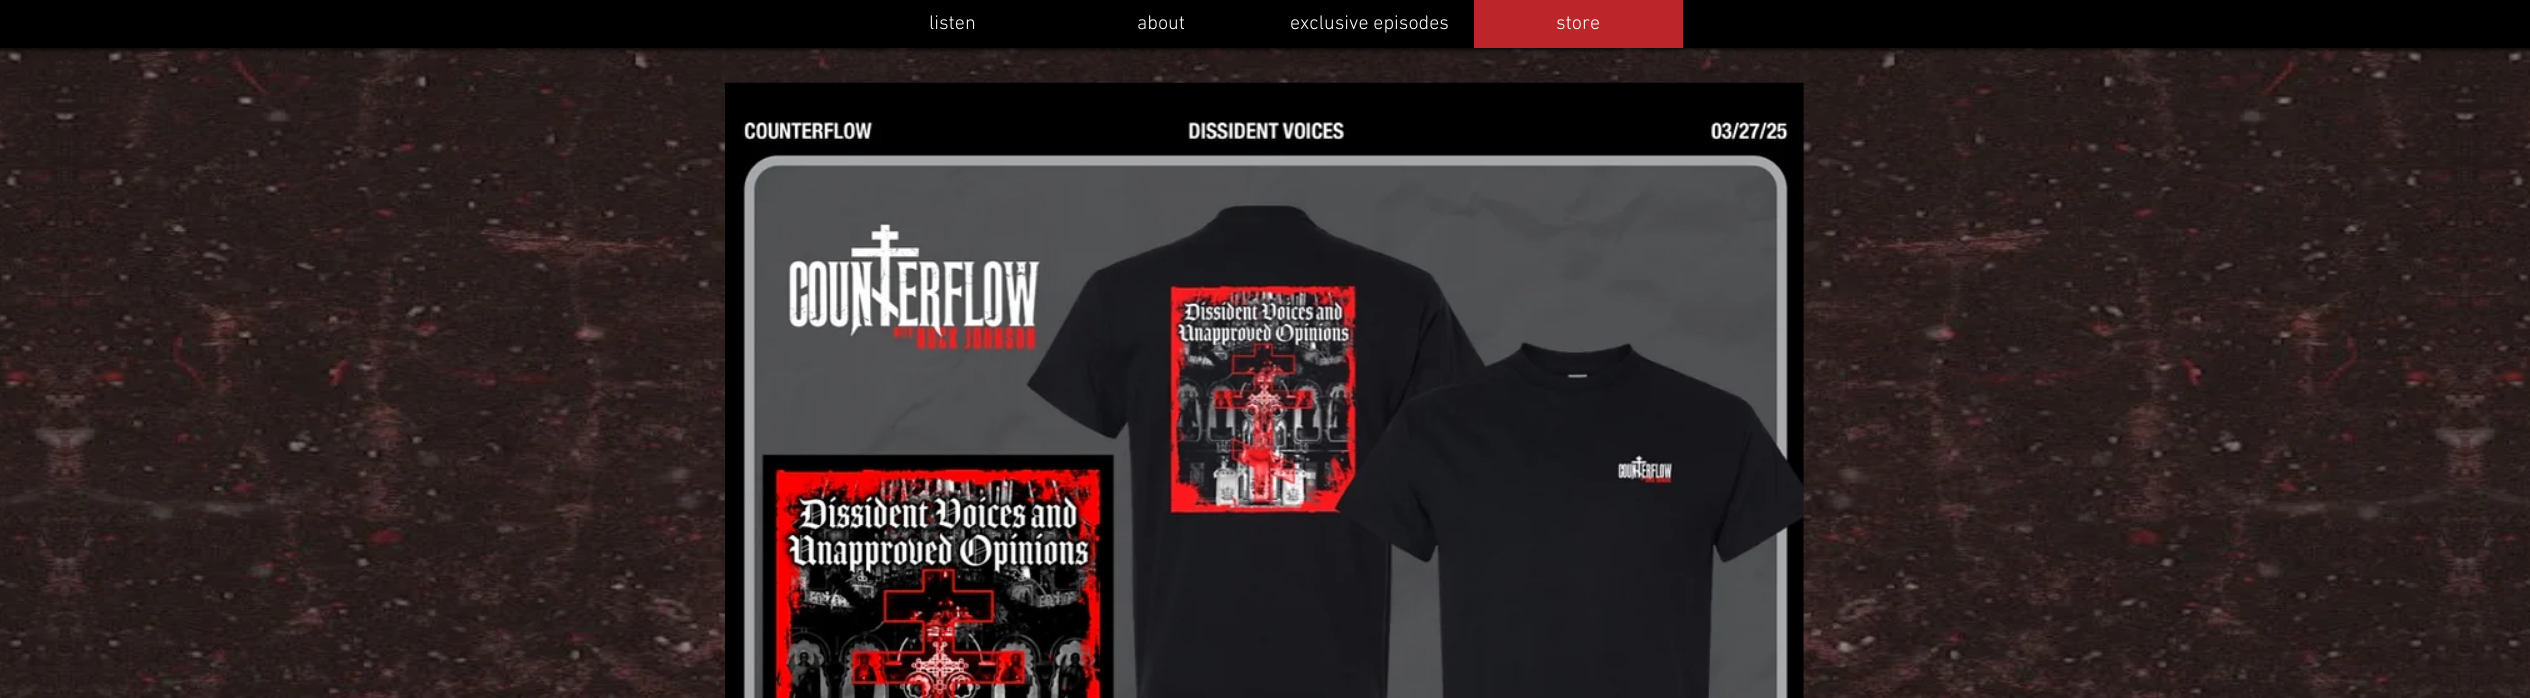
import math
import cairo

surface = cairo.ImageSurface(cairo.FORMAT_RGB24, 2530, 698)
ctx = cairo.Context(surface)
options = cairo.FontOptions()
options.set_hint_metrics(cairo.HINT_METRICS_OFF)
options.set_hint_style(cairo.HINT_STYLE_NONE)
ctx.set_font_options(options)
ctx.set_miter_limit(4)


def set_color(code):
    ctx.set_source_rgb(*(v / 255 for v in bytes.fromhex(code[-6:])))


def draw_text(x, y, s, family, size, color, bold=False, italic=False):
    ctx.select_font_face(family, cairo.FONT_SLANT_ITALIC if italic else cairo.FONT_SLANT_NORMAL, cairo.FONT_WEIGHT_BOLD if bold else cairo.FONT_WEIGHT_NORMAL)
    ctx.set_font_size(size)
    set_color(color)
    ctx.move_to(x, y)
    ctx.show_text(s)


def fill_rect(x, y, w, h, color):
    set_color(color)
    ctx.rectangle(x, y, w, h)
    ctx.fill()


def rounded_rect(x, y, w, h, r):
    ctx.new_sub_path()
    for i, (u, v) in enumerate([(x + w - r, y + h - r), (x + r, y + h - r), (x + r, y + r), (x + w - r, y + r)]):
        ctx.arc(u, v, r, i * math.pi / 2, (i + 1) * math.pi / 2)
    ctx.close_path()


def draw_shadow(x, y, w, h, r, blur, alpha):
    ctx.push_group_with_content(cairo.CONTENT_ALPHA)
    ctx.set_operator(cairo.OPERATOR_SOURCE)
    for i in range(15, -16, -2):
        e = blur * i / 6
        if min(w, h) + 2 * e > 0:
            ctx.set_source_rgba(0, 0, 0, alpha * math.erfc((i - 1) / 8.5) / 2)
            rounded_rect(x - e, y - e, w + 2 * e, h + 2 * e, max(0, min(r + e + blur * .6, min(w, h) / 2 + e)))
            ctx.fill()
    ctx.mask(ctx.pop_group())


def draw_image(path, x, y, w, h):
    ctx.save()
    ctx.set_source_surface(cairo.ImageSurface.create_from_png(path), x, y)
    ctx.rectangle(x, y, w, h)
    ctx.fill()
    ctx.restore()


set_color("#ffffff")
ctx.paint()
draw_image("assets/img1.png", 0, 48, 2530, 650)
set_color("#000000")
draw_shadow(-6, 3, 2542, 47, 0, 2, 0.7)
fill_rect(0, 0, 2530, 48, "#000000")
draw_text(929, 29, "listen", "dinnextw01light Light", 20, "#ffffff")
draw_text(1137, 29, "about", "dinnextw01light Light", 20, "#ffffff")
draw_text(1290, 29, "exclusive episodes", "dinnextw01light Light", 20, "#ffffff")
fill_rect(1474, 0, 209, 48, "#bc252a")
draw_text(1556, 29, "store", "dinnextw01light Light", 20, "#ffffff")
draw_image("assets/img2.png", 725, 82, 1079, 616)
surface.write_to_png("output.png")
